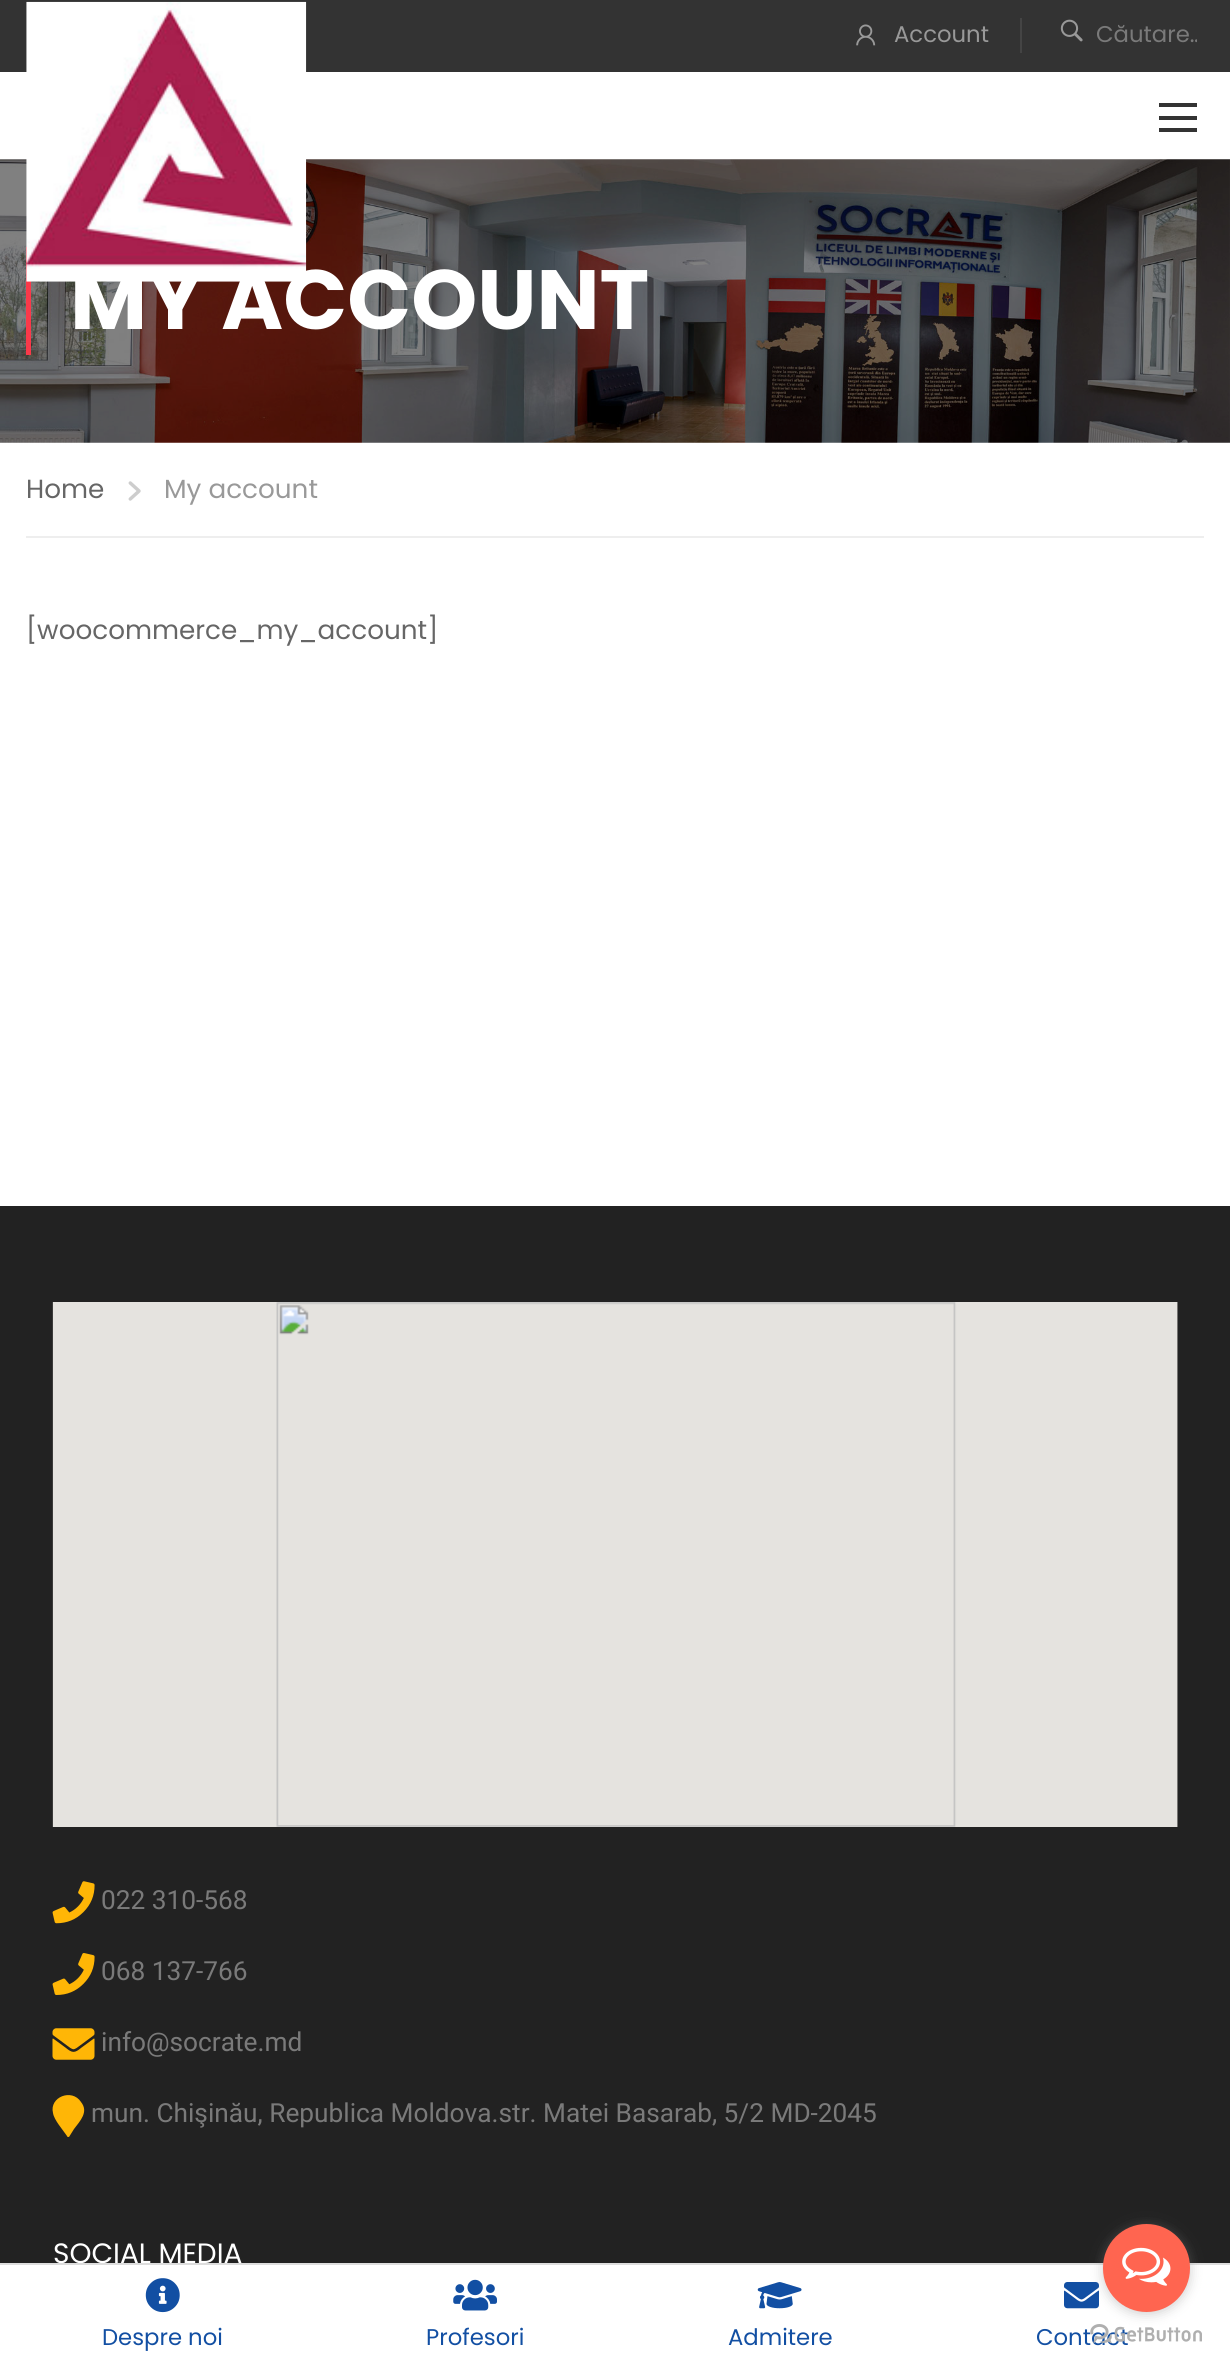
import math
import cairo

surface = cairo.ImageSurface(cairo.FORMAT_RGB24, 1230, 2371)
ctx = cairo.Context(surface)
options = cairo.FontOptions()
options.set_hint_metrics(cairo.HINT_METRICS_OFF)
options.set_hint_style(cairo.HINT_STYLE_NONE)
ctx.set_font_options(options)
ctx.set_miter_limit(4)


def set_color(code):
    ctx.set_source_rgb(*(v / 255 for v in bytes.fromhex(code[-6:])))


def draw_text(x, y, s, family, size, color, bold=False, italic=False):
    ctx.select_font_face(family, cairo.FONT_SLANT_ITALIC if italic else cairo.FONT_SLANT_NORMAL, cairo.FONT_WEIGHT_BOLD if bold else cairo.FONT_WEIGHT_NORMAL)
    ctx.set_font_size(size)
    set_color(color)
    ctx.move_to(x, y)
    ctx.show_text(s)


def fill_rect(x, y, w, h, color):
    set_color(color)
    ctx.rectangle(x, y, w, h)
    ctx.fill()


def rounded_rect(x, y, w, h, r):
    ctx.new_sub_path()
    for i, (u, v) in enumerate([(x + w - r, y + h - r), (x + r, y + h - r), (x + r, y + r), (x + w - r, y + r)]):
        ctx.arc(u, v, r, i * math.pi / 2, (i + 1) * math.pi / 2)
    ctx.close_path()


def draw_shadow(x, y, w, h, r, blur, alpha):
    ctx.push_group_with_content(cairo.CONTENT_ALPHA)
    ctx.set_operator(cairo.OPERATOR_SOURCE)
    for i in range(15, -16, -2):
        e = blur * i / 6
        if min(w, h) + 2 * e > 0:
            ctx.set_source_rgba(0, 0, 0, alpha * math.erfc((i - 1) / 8.5) / 2)
            rounded_rect(x - e, y - e, w + 2 * e, h + 2 * e, max(0, min(r + e + blur * .6, min(w, h) / 2 + e)))
            ctx.fill()
    ctx.mask(ctx.pop_group())


def draw_image(path, x, y, w, h):
    ctx.save()
    ctx.set_source_surface(cairo.ImageSurface.create_from_png(path), x, y)
    ctx.rectangle(x, y, w, h)
    ctx.fill()
    ctx.restore()


set_color("#ffffff")
ctx.paint()
fill_rect(0, 0, 1230, 72, "#333333")
draw_image("assets/img4.png", 0, 159, 1230, 284)
fill_rect(26, 247, 5, 108, "#fa394a")
draw_text(70, 329, "MY ACCOUNT", "Poppins", 84, "#ffffff", bold=True)
draw_image("assets/img1.png", 26, 1, 281, 281)
fill_rect(1159, 103, 38, 4, "#333333")
fill_rect(1159, 116, 38, 4, "#333333")
fill_rect(1159, 128, 38, 4, "#333333")
draw_image("assets/img2.png", 856, 24, 20, 22)
draw_text(894, 42, "Account", "Poppins", 22.75, "#999999")
fill_rect(1020, 18, 2, 35, "#444444")
draw_image("assets/img3.png", 1060, 19, 23, 23)
ctx.save()
ctx.rectangle(1096, 18, 101, 35)
ctx.clip()
draw_text(1096, 42, "Căutare…", "Poppins", 22.75, "#7a7a7a")
ctx.restore()
fill_rect(26, 536, 1178, 2, "#eeeeee")
draw_text(26, 498, "Home", "Poppins", 26.25, "#666666")
draw_image("assets/img5.png", 128, 481, 13, 20)
draw_text(164, 498, "My account", "Poppins", 26.25, "#999999")
draw_text(26, 639, "[woocommerce_my_account]", "Poppins", 26.25, "#666666")
fill_rect(0, 1206, 1230, 1057, "#222222")
draw_image("assets/img6.png", 52, 1302, 1126, 525)
draw_image("assets/img7.png", 52, 1881, 43, 43)
draw_text(101, 1909, "022 310-568", "Roboto", 26.25, "#7a7a7a")
draw_image("assets/img8.png", 52, 1953, 43, 42)
draw_text(101, 1980, "068 137-766", "Roboto", 26.25, "#7a7a7a")
draw_image("assets/img9.png", 52, 2028, 43, 32)
draw_text(101, 2051, "info@socrate.md", "Roboto", 26.25, "#7a7a7a")
set_color("#ffb606")
ctx.new_path()
ctx.move_to(67, 2136)
ctx.curve_to(63, 2130, 54, 2120, 53, 2113)
ctx.curve_to(49, 2097, 72, 2088, 81, 2102)
ctx.curve_to(89, 2112, 80, 2121, 74, 2129)
ctx.line_to(69, 2137)
ctx.curve_to(68, 2137, 67, 2137, 67, 2136)
ctx.close_path()
ctx.fill()
draw_text(91, 2122, "mun. Chişinău, Republica Moldova.str. Matei Basarab, 5/2 MD-2045", "Roboto", 26.25, "#7a7a7a")
draw_text(53, 2263, "SOCIAL MEDIA", "Poppins", 28, "#ffffff")
fill_rect(0, 2263, 1230, 2, "#dddddd")
draw_image("assets/img10.png", 145, 2278, 35, 35)
draw_text(102, 2345, "Despre noi", "Poppins", 22.75, "#124fa3")
draw_image("assets/img11.png", 453, 2279, 44, 32)
draw_text(426, 2345, "Profesori", "Poppins", 22.75, "#124fa3")
draw_image("assets/img12.png", 757, 2282, 45, 27)
draw_text(728, 2345, "Admitere", "Poppins", 22.75, "#124fa3")
draw_image("assets/img13.png", 1064, 2282, 35, 27)
draw_text(1036, 2345, "Contact", "Poppins", 22.75, "#124fa3")
draw_image("assets/img15.png", 1090, 2324, 112, 19)
set_color("#888888")
draw_shadow(1103, 2226, 87, 88, 43.5, 6, 0.4)
set_color("#ff6550")
rounded_rect(1103, 2224, 87, 88, 43.5)
ctx.fill()
draw_image("assets/img14.png", 1122, 2247, 49, 39)
surface.write_to_png("output.png")
